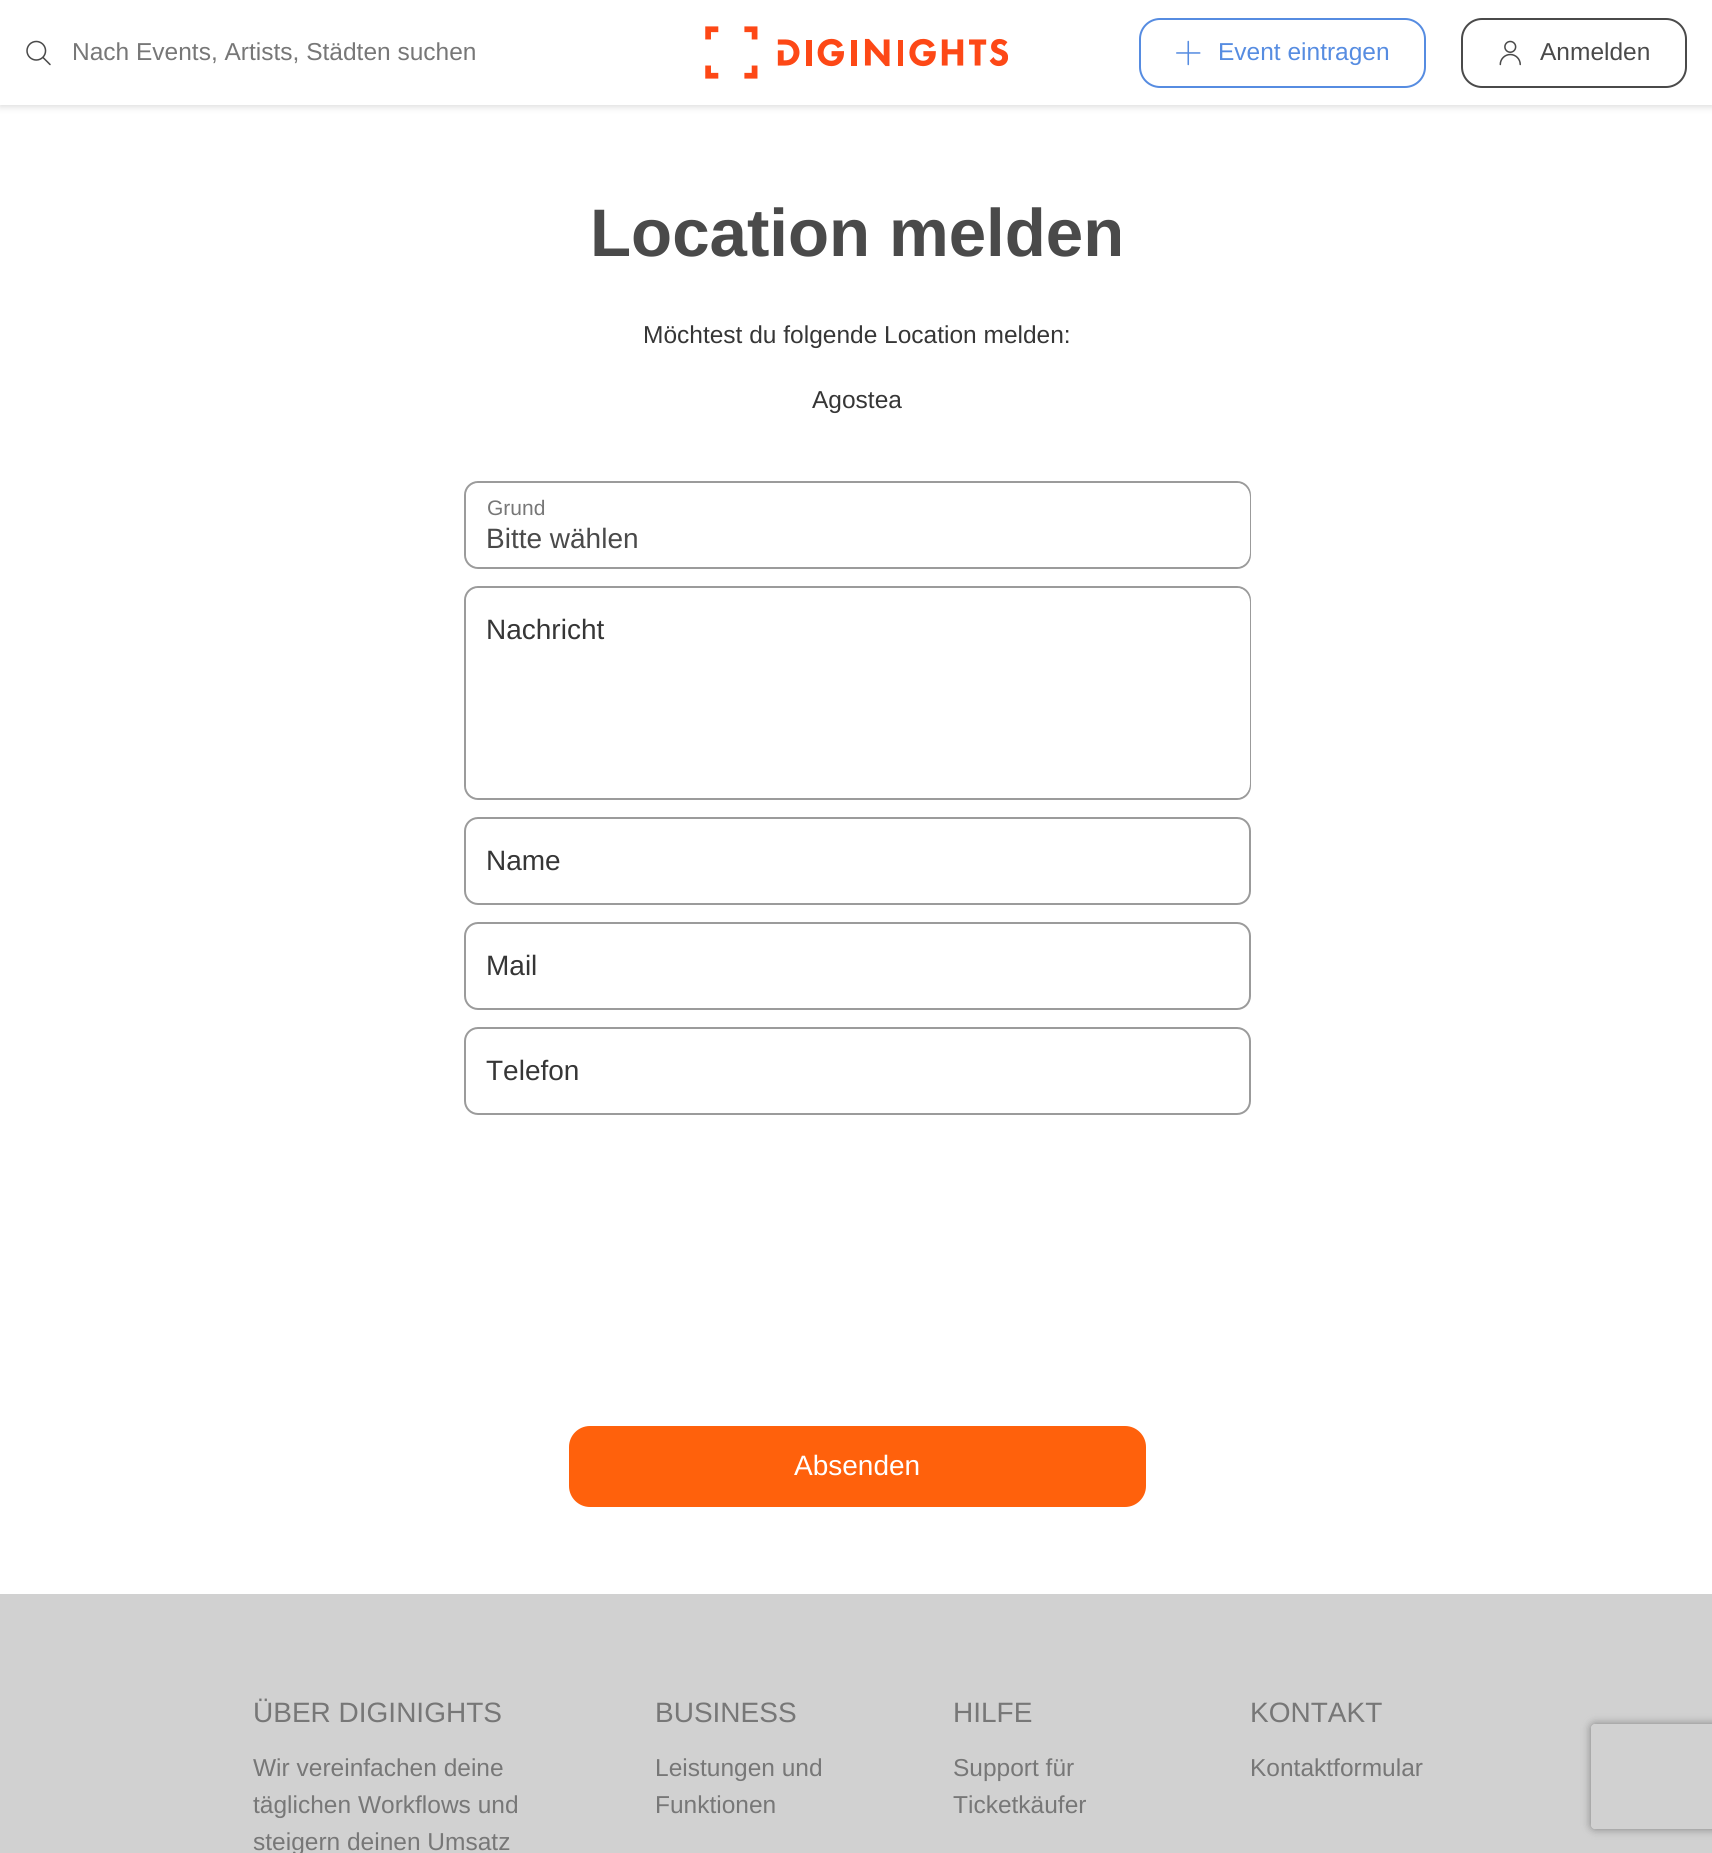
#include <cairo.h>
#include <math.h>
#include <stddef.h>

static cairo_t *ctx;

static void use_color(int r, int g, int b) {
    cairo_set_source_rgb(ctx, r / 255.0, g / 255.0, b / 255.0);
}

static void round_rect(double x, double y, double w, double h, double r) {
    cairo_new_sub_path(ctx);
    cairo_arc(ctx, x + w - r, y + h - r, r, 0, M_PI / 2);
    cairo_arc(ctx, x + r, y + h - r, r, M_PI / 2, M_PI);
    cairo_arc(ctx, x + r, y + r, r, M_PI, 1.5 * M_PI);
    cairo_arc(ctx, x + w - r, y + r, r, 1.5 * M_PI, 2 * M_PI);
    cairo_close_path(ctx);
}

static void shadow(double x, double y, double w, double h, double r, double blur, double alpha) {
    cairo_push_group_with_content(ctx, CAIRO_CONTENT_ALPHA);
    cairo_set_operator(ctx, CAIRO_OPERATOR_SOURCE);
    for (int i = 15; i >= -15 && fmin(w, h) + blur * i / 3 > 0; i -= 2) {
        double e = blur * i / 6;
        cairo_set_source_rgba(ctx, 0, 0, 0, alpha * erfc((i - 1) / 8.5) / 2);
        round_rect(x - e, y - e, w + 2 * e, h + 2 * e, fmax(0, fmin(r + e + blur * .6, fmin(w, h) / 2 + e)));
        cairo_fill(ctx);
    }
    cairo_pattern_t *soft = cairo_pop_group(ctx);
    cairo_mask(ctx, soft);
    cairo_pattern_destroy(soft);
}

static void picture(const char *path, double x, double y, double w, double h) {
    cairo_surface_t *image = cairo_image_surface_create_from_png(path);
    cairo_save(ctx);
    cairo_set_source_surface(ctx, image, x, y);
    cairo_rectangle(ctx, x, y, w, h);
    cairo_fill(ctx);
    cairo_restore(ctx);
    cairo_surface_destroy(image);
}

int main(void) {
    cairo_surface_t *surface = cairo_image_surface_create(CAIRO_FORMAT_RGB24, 1712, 1853);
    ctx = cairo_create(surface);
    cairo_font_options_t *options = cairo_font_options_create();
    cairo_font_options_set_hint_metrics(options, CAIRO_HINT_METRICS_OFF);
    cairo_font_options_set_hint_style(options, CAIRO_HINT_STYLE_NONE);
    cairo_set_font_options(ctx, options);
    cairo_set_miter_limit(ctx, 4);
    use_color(255, 255, 255);
    cairo_paint(ctx);
    cairo_save(ctx);
    cairo_rectangle(ctx, 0, 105, 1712, 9);
    cairo_clip(ctx);
    use_color(221, 221, 221);
    shadow(0, 2, 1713, 105, 0, 3.5, 1);
    cairo_restore(ctx);
    picture("img1.png", 26, 40, 25, 26);
    cairo_select_font_face(ctx, "Liberation Sans", CAIRO_FONT_SLANT_NORMAL, CAIRO_FONT_WEIGHT_NORMAL);
    cairo_set_font_size(ctx, 24.5);
    use_color(119, 119, 119);
    cairo_move_to(ctx, 72, 60);
    cairo_show_text(ctx, "Nach Events, Artists, Städten suchen");
    picture("img2.png", 705, 26, 303, 53);
    round_rect(1140, 19, 285, 68, 20);
    use_color(86, 140, 225);
    cairo_stroke(ctx);
    picture("img3.png", 1176, 40, 25, 26);
    cairo_move_to(ctx, 1218, 60);
    cairo_show_text(ctx, "Event eintragen");
    round_rect(1462, 19, 224, 68, 20);
    use_color(74, 74, 74);
    cairo_stroke(ctx);
    picture("img4.png", 1499, 40, 22, 26);
    cairo_move_to(ctx, 1540, 60);
    cairo_show_text(ctx, "Anmelden");
    cairo_select_font_face(ctx, "Liberation Sans", CAIRO_FONT_SLANT_NORMAL, CAIRO_FONT_WEIGHT_BOLD);
    cairo_set_font_size(ctx, 67.25);
    cairo_move_to(ctx, 590, 256);
    cairo_show_text(ctx, "Location melden");
    cairo_select_font_face(ctx, "Liberation Sans", CAIRO_FONT_SLANT_NORMAL, CAIRO_FONT_WEIGHT_NORMAL);
    cairo_set_font_size(ctx, 24.5);
    use_color(54, 54, 54);
    cairo_move_to(ctx, 643, 343);
    cairo_show_text(ctx, "Möchtest du folgende Location melden:");
    cairo_move_to(ctx, 812, 408);
    cairo_show_text(ctx, "Agostea");
    round_rect(465, 482, 785, 86, 13);
    use_color(155, 155, 155);
    cairo_stroke(ctx);
    use_color(255, 255, 255);
    round_rect(466, 483, 784, 84, 14);
    cairo_fill(ctx);
    cairo_set_font_size(ctx, 21);
    use_color(119, 119, 119);
    cairo_move_to(ctx, 487, 515);
    cairo_show_text(ctx, "Grund");
    cairo_set_font_size(ctx, 28);
    use_color(74, 74, 74);
    cairo_move_to(ctx, 486, 548);
    cairo_show_text(ctx, "Bitte wählen");
    round_rect(465, 587, 785, 212, 13);
    use_color(155, 155, 155);
    cairo_stroke(ctx);
    use_color(255, 255, 255);
    round_rect(466, 588, 784, 210, 14);
    cairo_fill(ctx);
    use_color(54, 54, 54);
    cairo_move_to(ctx, 486, 639);
    cairo_show_text(ctx, "Nachricht");
    round_rect(465, 818, 785, 86, 13);
    use_color(155, 155, 155);
    cairo_stroke(ctx);
    use_color(54, 54, 54);
    cairo_move_to(ctx, 486, 870);
    cairo_show_text(ctx, "Name");
    round_rect(465, 923, 785, 86, 13);
    use_color(155, 155, 155);
    cairo_stroke(ctx);
    use_color(54, 54, 54);
    cairo_move_to(ctx, 486, 975);
    cairo_show_text(ctx, "Mail");
    round_rect(465, 1028, 785, 86, 13);
    use_color(155, 155, 155);
    cairo_stroke(ctx);
    use_color(54, 54, 54);
    cairo_move_to(ctx, 486, 1080);
    cairo_show_text(ctx, "Telefon");
    use_color(255, 97, 12);
    round_rect(570, 1427, 575, 79, 20);
    cairo_fill_preserve(ctx);
    cairo_stroke(ctx);
    use_color(255, 255, 255);
    cairo_move_to(ctx, 794, 1475);
    cairo_show_text(ctx, "Absenden");
    use_color(209, 209, 209);
    cairo_rectangle(ctx, 0, 1594, 1712, 259);
    cairo_fill(ctx);
    use_color(119, 119, 119);
    cairo_move_to(ctx, 253, 1722);
    cairo_show_text(ctx, "ÜBER DIGINIGHTS");
    cairo_set_font_size(ctx, 24.5);
    cairo_move_to(ctx, 253, 1776);
    cairo_show_text(ctx, "Wir vereinfachen deine");
    cairo_move_to(ctx, 253, 1813);
    cairo_show_text(ctx, "täglichen Workflows und");
    cairo_move_to(ctx, 253, 1850);
    cairo_show_text(ctx, "steigern deinen Umsatz");
    cairo_set_font_size(ctx, 28);
    cairo_move_to(ctx, 655, 1722);
    cairo_show_text(ctx, "BUSINESS");
    cairo_set_font_size(ctx, 24.5);
    cairo_move_to(ctx, 655, 1776);
    cairo_show_text(ctx, "Leistungen und");
    cairo_move_to(ctx, 655, 1813);
    cairo_show_text(ctx, "Funktionen");
    cairo_set_font_size(ctx, 28);
    cairo_move_to(ctx, 953, 1722);
    cairo_show_text(ctx, "HILFE");
    cairo_set_font_size(ctx, 24.5);
    cairo_move_to(ctx, 953, 1776);
    cairo_show_text(ctx, "Support für");
    cairo_move_to(ctx, 953, 1813);
    cairo_show_text(ctx, "Ticketkäufer");
    cairo_set_font_size(ctx, 28);
    cairo_move_to(ctx, 1250, 1722);
    cairo_show_text(ctx, "KONTAKT");
    cairo_set_font_size(ctx, 24.5);
    cairo_move_to(ctx, 1250, 1776);
    cairo_show_text(ctx, "Kontaktformular");
    cairo_save(ctx);
    cairo_set_fill_rule(ctx, CAIRO_FILL_RULE_EVEN_ODD);
    cairo_new_path(ctx);
    cairo_move_to(ctx, 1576, 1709);
    cairo_line_to(ctx, 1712, 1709);
    cairo_line_to(ctx, 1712, 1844);
    cairo_line_to(ctx, 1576, 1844);
    cairo_close_path(ctx);
    cairo_move_to(ctx, 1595, 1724);
    cairo_line_to(ctx, 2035, 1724);
    cairo_curve_to(ctx, 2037, 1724, 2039, 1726, 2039, 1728);
    cairo_line_to(ctx, 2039, 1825);
    cairo_curve_to(ctx, 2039, 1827, 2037, 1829, 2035, 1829);
    cairo_line_to(ctx, 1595, 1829);
    cairo_curve_to(ctx, 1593, 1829, 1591, 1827, 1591, 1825);
    cairo_line_to(ctx, 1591, 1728);
    cairo_curve_to(ctx, 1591, 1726, 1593, 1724, 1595, 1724);
    cairo_close_path(ctx);
    cairo_clip(ctx);
    use_color(128, 128, 128);
    shadow(1591, 1724, 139, 105, 4, 4.5, 1);
    cairo_restore(ctx);
    cairo_surface_write_to_png(surface, "result.png");
    cairo_font_options_destroy(options);
    cairo_destroy(ctx);
    cairo_surface_destroy(surface);
    return 0;
}
